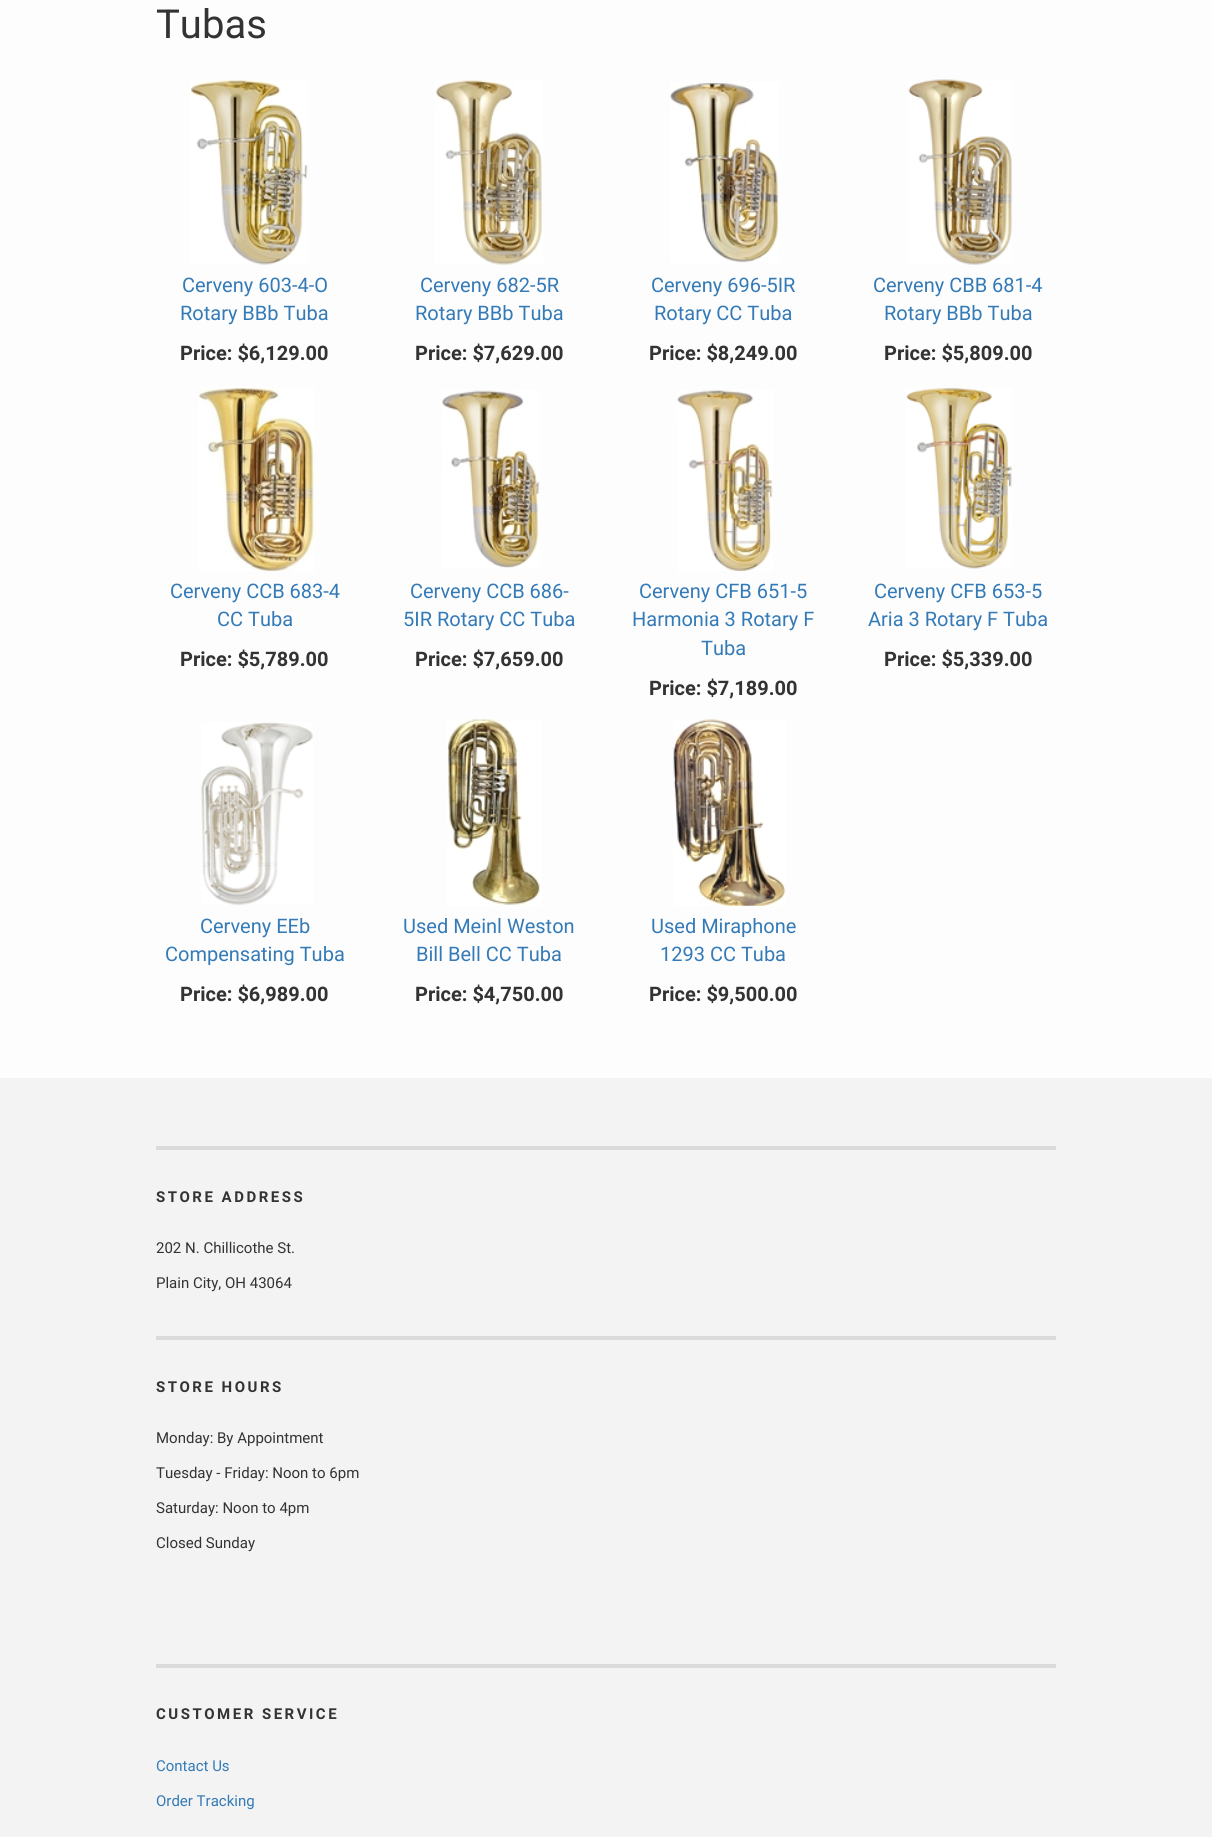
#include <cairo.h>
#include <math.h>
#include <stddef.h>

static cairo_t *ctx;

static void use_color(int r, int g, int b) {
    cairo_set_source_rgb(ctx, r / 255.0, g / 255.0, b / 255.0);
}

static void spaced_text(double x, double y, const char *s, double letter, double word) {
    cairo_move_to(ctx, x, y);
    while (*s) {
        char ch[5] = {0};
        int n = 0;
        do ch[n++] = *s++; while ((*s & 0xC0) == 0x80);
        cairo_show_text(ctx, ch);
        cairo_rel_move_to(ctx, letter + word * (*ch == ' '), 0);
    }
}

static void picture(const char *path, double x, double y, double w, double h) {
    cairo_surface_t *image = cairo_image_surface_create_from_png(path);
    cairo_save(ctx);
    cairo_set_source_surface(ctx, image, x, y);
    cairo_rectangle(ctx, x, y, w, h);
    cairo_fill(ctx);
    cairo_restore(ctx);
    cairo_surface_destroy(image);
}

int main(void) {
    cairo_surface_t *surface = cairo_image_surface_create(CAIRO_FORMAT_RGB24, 1212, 1837);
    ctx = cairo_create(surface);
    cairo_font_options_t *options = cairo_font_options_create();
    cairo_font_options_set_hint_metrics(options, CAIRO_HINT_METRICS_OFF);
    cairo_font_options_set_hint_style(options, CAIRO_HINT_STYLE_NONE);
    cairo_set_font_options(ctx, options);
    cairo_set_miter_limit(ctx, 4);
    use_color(253, 253, 253);
    cairo_paint(ctx);
    cairo_select_font_face(ctx, "Roboto", CAIRO_FONT_SLANT_NORMAL, CAIRO_FONT_WEIGHT_NORMAL);
    cairo_set_font_size(ctx, 40);
    use_color(51, 51, 51);
    cairo_move_to(ctx, 156, 38);
    cairo_show_text(ctx, "Tubas");
    picture("img1.png", 190, 79, 118, 186);
    cairo_set_font_size(ctx, 20);
    use_color(51, 122, 183);
    cairo_move_to(ctx, 182, 292);
    cairo_show_text(ctx, "Cerveny 603-4-O");
    cairo_move_to(ctx, 180, 320);
    cairo_show_text(ctx, "Rotary BBb Tuba");
    cairo_select_font_face(ctx, "Roboto", CAIRO_FONT_SLANT_NORMAL, CAIRO_FONT_WEIGHT_BOLD);
    use_color(51, 51, 51);
    cairo_move_to(ctx, 180, 360);
    cairo_show_text(ctx, "Price: $6,129.00");
    picture("img2.png", 435, 79, 108, 186);
    cairo_select_font_face(ctx, "Roboto", CAIRO_FONT_SLANT_NORMAL, CAIRO_FONT_WEIGHT_NORMAL);
    use_color(51, 122, 183);
    cairo_move_to(ctx, 420, 292);
    cairo_show_text(ctx, "Cerveny 682-5R");
    cairo_move_to(ctx, 415, 320);
    cairo_show_text(ctx, "Rotary BBb Tuba");
    cairo_select_font_face(ctx, "Roboto", CAIRO_FONT_SLANT_NORMAL, CAIRO_FONT_WEIGHT_BOLD);
    use_color(51, 51, 51);
    cairo_move_to(ctx, 415, 360);
    cairo_show_text(ctx, "Price: $7,629.00");
    picture("img3.png", 670, 82, 109, 181);
    cairo_select_font_face(ctx, "Roboto", CAIRO_FONT_SLANT_NORMAL, CAIRO_FONT_WEIGHT_NORMAL);
    use_color(51, 122, 183);
    cairo_move_to(ctx, 651, 292);
    cairo_show_text(ctx, "Cerveny 696-5IR");
    cairo_move_to(ctx, 654, 320);
    cairo_show_text(ctx, "Rotary CC Tuba");
    cairo_select_font_face(ctx, "Roboto", CAIRO_FONT_SLANT_NORMAL, CAIRO_FONT_WEIGHT_BOLD);
    use_color(51, 51, 51);
    cairo_move_to(ctx, 649, 360);
    cairo_show_text(ctx, "Price: $8,249.00");
    picture("img4.png", 908, 79, 104, 186);
    cairo_select_font_face(ctx, "Roboto", CAIRO_FONT_SLANT_NORMAL, CAIRO_FONT_WEIGHT_NORMAL);
    use_color(51, 122, 183);
    cairo_move_to(ctx, 873, 292);
    cairo_show_text(ctx, "Cerveny CBB 681-4");
    cairo_move_to(ctx, 884, 320);
    cairo_show_text(ctx, "Rotary BBb Tuba");
    cairo_select_font_face(ctx, "Roboto", CAIRO_FONT_SLANT_NORMAL, CAIRO_FONT_WEIGHT_BOLD);
    use_color(51, 51, 51);
    cairo_move_to(ctx, 884, 360);
    cairo_show_text(ctx, "Price: $5,809.00");
    picture("img5.png", 198, 387, 117, 184);
    cairo_select_font_face(ctx, "Roboto", CAIRO_FONT_SLANT_NORMAL, CAIRO_FONT_WEIGHT_NORMAL);
    use_color(51, 122, 183);
    cairo_move_to(ctx, 170, 598);
    cairo_show_text(ctx, "Cerveny CCB 683-4");
    cairo_move_to(ctx, 217, 626);
    cairo_show_text(ctx, "CC Tuba");
    cairo_select_font_face(ctx, "Roboto", CAIRO_FONT_SLANT_NORMAL, CAIRO_FONT_WEIGHT_BOLD);
    use_color(51, 51, 51);
    cairo_move_to(ctx, 180, 666);
    cairo_show_text(ctx, "Price: $5,789.00");
    picture("img6.png", 442, 390, 98, 178);
    cairo_select_font_face(ctx, "Roboto", CAIRO_FONT_SLANT_NORMAL, CAIRO_FONT_WEIGHT_NORMAL);
    use_color(51, 122, 183);
    cairo_move_to(ctx, 410, 598);
    cairo_show_text(ctx, "Cerveny CCB 686-");
    cairo_move_to(ctx, 403, 626);
    cairo_show_text(ctx, "5IR Rotary CC Tuba");
    cairo_select_font_face(ctx, "Roboto", CAIRO_FONT_SLANT_NORMAL, CAIRO_FONT_WEIGHT_BOLD);
    use_color(51, 51, 51);
    cairo_move_to(ctx, 415, 666);
    cairo_show_text(ctx, "Price: $7,659.00");
    picture("img7.png", 677, 390, 96, 181);
    cairo_select_font_face(ctx, "Roboto", CAIRO_FONT_SLANT_NORMAL, CAIRO_FONT_WEIGHT_NORMAL);
    use_color(51, 122, 183);
    cairo_move_to(ctx, 639, 598);
    cairo_show_text(ctx, "Cerveny CFB 651-5");
    cairo_move_to(ctx, 632, 626);
    cairo_show_text(ctx, "Harmonia 3 Rotary F");
    cairo_move_to(ctx, 701, 655);
    cairo_show_text(ctx, "Tuba");
    cairo_select_font_face(ctx, "Roboto", CAIRO_FONT_SLANT_NORMAL, CAIRO_FONT_WEIGHT_BOLD);
    use_color(51, 51, 51);
    cairo_move_to(ctx, 649, 695);
    cairo_show_text(ctx, "Price: $7,189.00");
    picture("img8.png", 906, 388, 106, 181);
    cairo_select_font_face(ctx, "Roboto", CAIRO_FONT_SLANT_NORMAL, CAIRO_FONT_WEIGHT_NORMAL);
    use_color(51, 122, 183);
    cairo_move_to(ctx, 874, 598);
    cairo_show_text(ctx, "Cerveny CFB 653-5");
    cairo_move_to(ctx, 868, 626);
    cairo_show_text(ctx, "Aria 3 Rotary F Tuba");
    cairo_select_font_face(ctx, "Roboto", CAIRO_FONT_SLANT_NORMAL, CAIRO_FONT_WEIGHT_BOLD);
    use_color(51, 51, 51);
    cairo_move_to(ctx, 884, 666);
    cairo_show_text(ctx, "Price: $5,339.00");
    picture("img9.png", 201, 722, 112, 183);
    cairo_select_font_face(ctx, "Roboto", CAIRO_FONT_SLANT_NORMAL, CAIRO_FONT_WEIGHT_NORMAL);
    use_color(51, 122, 183);
    cairo_move_to(ctx, 200, 933);
    cairo_show_text(ctx, "Cerveny EEb");
    cairo_move_to(ctx, 165, 961);
    cairo_show_text(ctx, "Compensating Tuba");
    cairo_select_font_face(ctx, "Roboto", CAIRO_FONT_SLANT_NORMAL, CAIRO_FONT_WEIGHT_BOLD);
    use_color(51, 51, 51);
    cairo_move_to(ctx, 180, 1001);
    cairo_show_text(ctx, "Price: $6,989.00");
    picture("img10.png", 447, 719, 94, 187);
    cairo_select_font_face(ctx, "Roboto", CAIRO_FONT_SLANT_NORMAL, CAIRO_FONT_WEIGHT_NORMAL);
    use_color(51, 122, 183);
    cairo_move_to(ctx, 403, 933);
    cairo_show_text(ctx, "Used Meinl Weston");
    cairo_move_to(ctx, 416, 961);
    cairo_show_text(ctx, "Bill Bell CC Tuba");
    cairo_select_font_face(ctx, "Roboto", CAIRO_FONT_SLANT_NORMAL, CAIRO_FONT_WEIGHT_BOLD);
    use_color(51, 51, 51);
    cairo_move_to(ctx, 415, 1001);
    cairo_show_text(ctx, "Price: $4,750.00");
    picture("img11.png", 673, 719, 113, 187);
    cairo_select_font_face(ctx, "Roboto", CAIRO_FONT_SLANT_NORMAL, CAIRO_FONT_WEIGHT_NORMAL);
    use_color(51, 122, 183);
    cairo_move_to(ctx, 651, 933);
    cairo_show_text(ctx, "Used Miraphone");
    cairo_move_to(ctx, 660, 961);
    cairo_show_text(ctx, "1293 CC Tuba");
    cairo_select_font_face(ctx, "Roboto", CAIRO_FONT_SLANT_NORMAL, CAIRO_FONT_WEIGHT_BOLD);
    use_color(51, 51, 51);
    cairo_move_to(ctx, 649, 1001);
    cairo_show_text(ctx, "Price: $9,500.00");
    use_color(243, 243, 243);
    cairo_rectangle(ctx, 0, 1078, 1212, 759);
    cairo_fill(ctx);
    use_color(219, 219, 219);
    cairo_rectangle(ctx, 156, 1146, 900, 4);
    cairo_fill(ctx);
    cairo_set_font_size(ctx, 15);
    use_color(51, 51, 51);
    spaced_text(156, 1202, "STORE ADDRESS", 2.5, 0);
    cairo_select_font_face(ctx, "Roboto", CAIRO_FONT_SLANT_NORMAL, CAIRO_FONT_WEIGHT_NORMAL);
    cairo_move_to(ctx, 156, 1253);
    cairo_show_text(ctx, "202 N. Chillicothe St.");
    cairo_move_to(ctx, 156, 1288);
    cairo_show_text(ctx, "Plain City, OH 43064");
    use_color(219, 219, 219);
    cairo_rectangle(ctx, 156, 1336, 900, 4);
    cairo_fill(ctx);
    cairo_select_font_face(ctx, "Roboto", CAIRO_FONT_SLANT_NORMAL, CAIRO_FONT_WEIGHT_BOLD);
    use_color(51, 51, 51);
    spaced_text(156, 1392, "STORE HOURS", 2.5, 0);
    cairo_select_font_face(ctx, "Roboto", CAIRO_FONT_SLANT_NORMAL, CAIRO_FONT_WEIGHT_NORMAL);
    cairo_move_to(ctx, 156, 1443);
    cairo_show_text(ctx, "Monday: By Appointment");
    cairo_move_to(ctx, 156, 1478);
    cairo_show_text(ctx, "Tuesday - Friday: Noon to 6pm");
    cairo_move_to(ctx, 156, 1513);
    cairo_show_text(ctx, "Saturday: Noon to 4pm");
    cairo_move_to(ctx, 156, 1548);
    cairo_show_text(ctx, "Closed Sunday");
    use_color(219, 219, 219);
    cairo_rectangle(ctx, 156, 1664, 900, 4);
    cairo_fill(ctx);
    cairo_select_font_face(ctx, "Roboto", CAIRO_FONT_SLANT_NORMAL, CAIRO_FONT_WEIGHT_BOLD);
    use_color(51, 51, 51);
    spaced_text(156, 1719, "CUSTOMER SERVICE", 2.5, 0);
    cairo_select_font_face(ctx, "Roboto", CAIRO_FONT_SLANT_NORMAL, CAIRO_FONT_WEIGHT_NORMAL);
    use_color(51, 122, 183);
    cairo_move_to(ctx, 156, 1771);
    cairo_show_text(ctx, "Contact Us");
    cairo_move_to(ctx, 156, 1806);
    cairo_show_text(ctx, "Order Tracking");
    cairo_surface_write_to_png(surface, "result.png");
    cairo_font_options_destroy(options);
    cairo_destroy(ctx);
    cairo_surface_destroy(surface);
    return 0;
}
